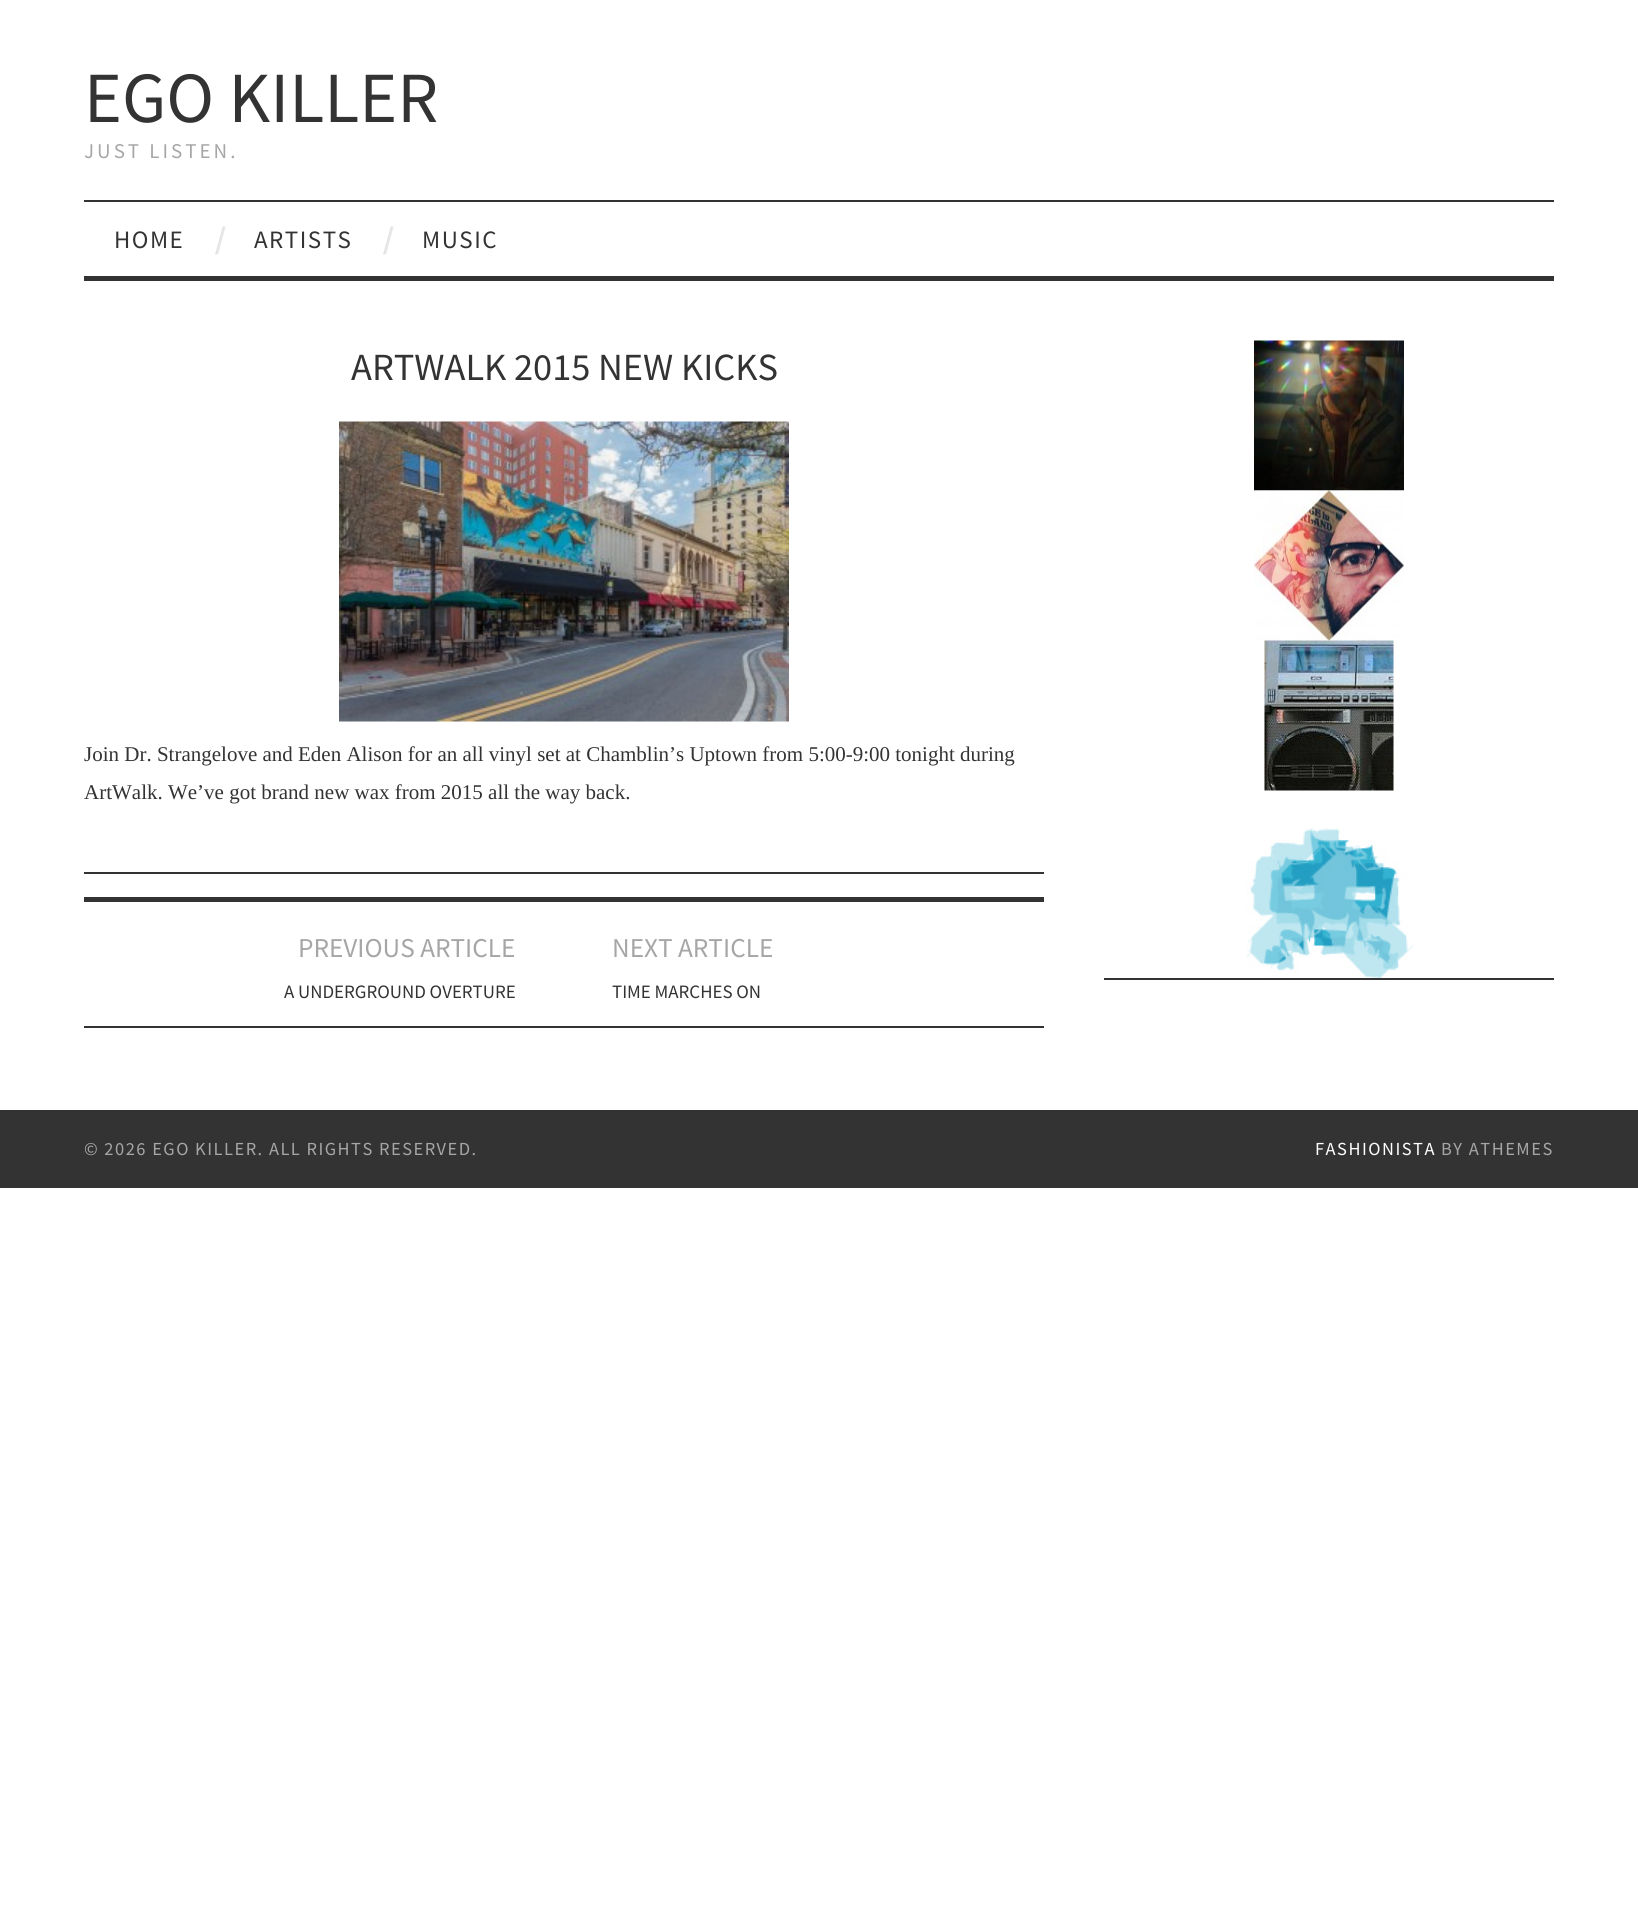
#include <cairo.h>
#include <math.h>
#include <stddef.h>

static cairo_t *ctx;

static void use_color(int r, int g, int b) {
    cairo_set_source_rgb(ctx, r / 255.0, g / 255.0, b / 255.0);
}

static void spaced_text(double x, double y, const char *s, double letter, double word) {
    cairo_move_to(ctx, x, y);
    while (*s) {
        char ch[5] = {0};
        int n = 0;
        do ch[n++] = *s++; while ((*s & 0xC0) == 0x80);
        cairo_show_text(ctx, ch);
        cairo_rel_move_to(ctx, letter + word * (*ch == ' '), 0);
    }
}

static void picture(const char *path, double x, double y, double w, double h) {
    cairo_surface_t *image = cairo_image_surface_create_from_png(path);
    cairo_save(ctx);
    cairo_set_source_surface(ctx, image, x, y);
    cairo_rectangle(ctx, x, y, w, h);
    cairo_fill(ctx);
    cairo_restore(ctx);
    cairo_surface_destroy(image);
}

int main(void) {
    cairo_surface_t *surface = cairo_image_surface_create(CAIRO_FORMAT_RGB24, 1638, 1907);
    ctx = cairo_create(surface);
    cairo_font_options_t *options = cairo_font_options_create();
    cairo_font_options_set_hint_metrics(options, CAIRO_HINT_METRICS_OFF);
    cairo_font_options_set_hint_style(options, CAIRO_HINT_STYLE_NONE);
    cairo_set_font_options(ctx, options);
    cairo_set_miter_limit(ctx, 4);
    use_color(255, 255, 255);
    cairo_paint(ctx);
    cairo_select_font_face(ctx, "Source Sans Pro", CAIRO_FONT_SLANT_NORMAL, CAIRO_FONT_WEIGHT_NORMAL);
    cairo_set_font_size(ctx, 72);
    use_color(51, 51, 51);
    cairo_move_to(ctx, 84, 122);
    cairo_show_text(ctx, "EGO KILLER");
    cairo_set_font_size(ctx, 21);
    use_color(166, 166, 166);
    spaced_text(84, 158, "JUST LISTEN.", 3, 0);
    use_color(51, 51, 51);
    cairo_rectangle(ctx, 84, 200, 1470, 2);
    cairo_fill(ctx);
    cairo_rectangle(ctx, 84, 276, 1470, 5);
    cairo_fill(ctx);
    cairo_set_font_size(ctx, 25);
    spaced_text(114, 248, "HOME", 1.5, 0);
    cairo_select_font_face(ctx, "Liberation Sans", CAIRO_FONT_SLANT_NORMAL, CAIRO_FONT_WEIGHT_NORMAL);
    cairo_set_font_size(ctx, 38);
    use_color(230, 230, 230);
    cairo_move_to(ctx, 215, 254);
    cairo_show_text(ctx, "/");
    cairo_select_font_face(ctx, "Source Sans Pro", CAIRO_FONT_SLANT_NORMAL, CAIRO_FONT_WEIGHT_NORMAL);
    cairo_set_font_size(ctx, 25);
    use_color(51, 51, 51);
    spaced_text(254, 248, "ARTISTS", 1.5, 0);
    cairo_select_font_face(ctx, "Liberation Sans", CAIRO_FONT_SLANT_NORMAL, CAIRO_FONT_WEIGHT_NORMAL);
    cairo_set_font_size(ctx, 38);
    use_color(230, 230, 230);
    cairo_move_to(ctx, 383, 254);
    cairo_show_text(ctx, "/");
    cairo_select_font_face(ctx, "Source Sans Pro", CAIRO_FONT_SLANT_NORMAL, CAIRO_FONT_WEIGHT_NORMAL);
    cairo_set_font_size(ctx, 25);
    use_color(51, 51, 51);
    spaced_text(422, 248, "MUSIC", 1.5, 0);
    cairo_set_font_size(ctx, 38.4);
    cairo_move_to(ctx, 351, 380);
    cairo_show_text(ctx, "ARTWALK 2015 NEW KICKS");
    picture("img1.png", 339, 421, 450, 301);
    cairo_select_font_face(ctx, "Liberation Serif", CAIRO_FONT_SLANT_NORMAL, CAIRO_FONT_WEIGHT_NORMAL);
    cairo_set_font_size(ctx, 21);
    cairo_move_to(ctx, 84, 761);
    cairo_show_text(ctx, "Join Dr. Strangelove and Eden Alison for an all vinyl set at Chamblin’s Uptown from 5:00-9:00 tonight during");
    cairo_move_to(ctx, 84, 799);
    cairo_show_text(ctx, "ArtWalk. We’ve got brand new wax from 2015 all the way back.");
    cairo_rectangle(ctx, 84, 872, 960, 2);
    cairo_fill(ctx);
    cairo_rectangle(ctx, 84, 897, 960, 5);
    cairo_fill(ctx);
    cairo_rectangle(ctx, 84, 1026, 960, 2);
    cairo_fill(ctx);
    cairo_select_font_face(ctx, "Source Sans Pro", CAIRO_FONT_SLANT_NORMAL, CAIRO_FONT_WEIGHT_NORMAL);
    cairo_set_font_size(ctx, 27.25);
    use_color(166, 166, 166);
    cairo_move_to(ctx, 298, 957);
    cairo_show_text(ctx, "PREVIOUS ARTICLE");
    cairo_set_font_size(ctx, 18.9);
    use_color(51, 51, 51);
    cairo_move_to(ctx, 284, 998);
    cairo_show_text(ctx, "A UNDERGROUND OVERTURE");
    cairo_set_font_size(ctx, 27.25);
    use_color(166, 166, 166);
    cairo_move_to(ctx, 612, 957);
    cairo_show_text(ctx, "NEXT ARTICLE");
    cairo_set_font_size(ctx, 18.9);
    use_color(51, 51, 51);
    cairo_move_to(ctx, 612, 998);
    cairo_show_text(ctx, "TIME MARCHES ON");
    cairo_rectangle(ctx, 1104, 978, 450, 2);
    cairo_fill(ctx);
    picture("img2.png", 1254, 340, 150, 151);
    picture("img3.png", 1254, 490, 150, 151);
    picture("img4.png", 1264, 640, 130, 151);
    picture("img5.png", 1246, 828, 167, 150);
    cairo_rectangle(ctx, 0, 1110, 1638, 78);
    cairo_fill(ctx);
    cairo_set_font_size(ctx, 18.4);
    use_color(166, 166, 166);
    spaced_text(84, 1155, "© 2026 EGO KILLER. ALL RIGHTS RESERVED.", 1.5, 0);
    use_color(255, 255, 255);
    spaced_text(1315, 1155, "FASHIONISTA", 1.5, 0);
    use_color(166, 166, 166);
    spaced_text(1441, 1155, "BY ATHEMES", 1.5, 0);
    cairo_surface_write_to_png(surface, "result.png");
    cairo_font_options_destroy(options);
    cairo_destroy(ctx);
    cairo_surface_destroy(surface);
    return 0;
}
